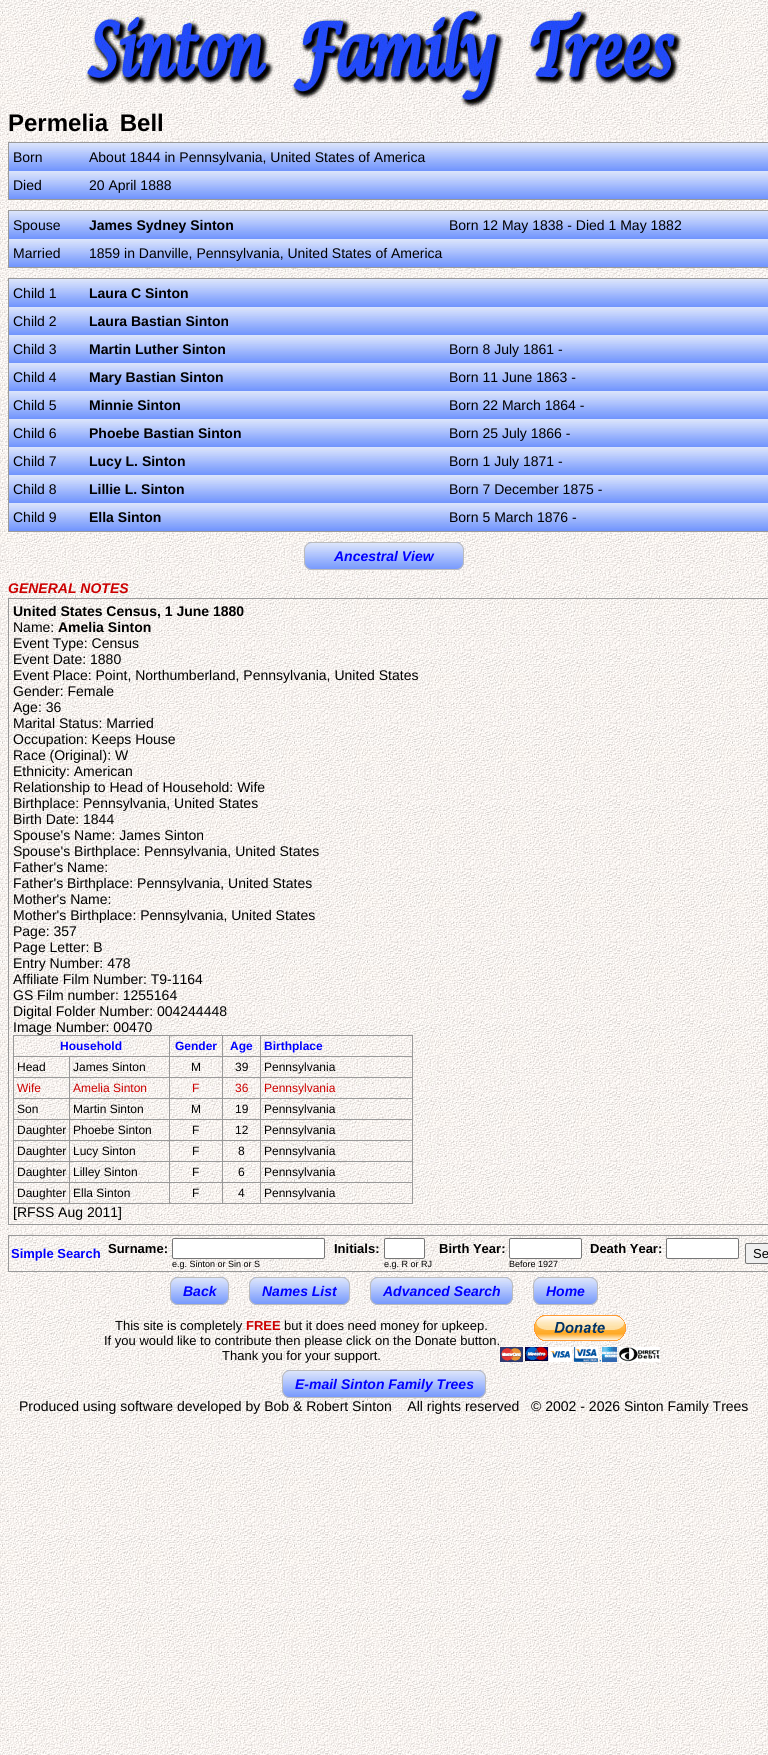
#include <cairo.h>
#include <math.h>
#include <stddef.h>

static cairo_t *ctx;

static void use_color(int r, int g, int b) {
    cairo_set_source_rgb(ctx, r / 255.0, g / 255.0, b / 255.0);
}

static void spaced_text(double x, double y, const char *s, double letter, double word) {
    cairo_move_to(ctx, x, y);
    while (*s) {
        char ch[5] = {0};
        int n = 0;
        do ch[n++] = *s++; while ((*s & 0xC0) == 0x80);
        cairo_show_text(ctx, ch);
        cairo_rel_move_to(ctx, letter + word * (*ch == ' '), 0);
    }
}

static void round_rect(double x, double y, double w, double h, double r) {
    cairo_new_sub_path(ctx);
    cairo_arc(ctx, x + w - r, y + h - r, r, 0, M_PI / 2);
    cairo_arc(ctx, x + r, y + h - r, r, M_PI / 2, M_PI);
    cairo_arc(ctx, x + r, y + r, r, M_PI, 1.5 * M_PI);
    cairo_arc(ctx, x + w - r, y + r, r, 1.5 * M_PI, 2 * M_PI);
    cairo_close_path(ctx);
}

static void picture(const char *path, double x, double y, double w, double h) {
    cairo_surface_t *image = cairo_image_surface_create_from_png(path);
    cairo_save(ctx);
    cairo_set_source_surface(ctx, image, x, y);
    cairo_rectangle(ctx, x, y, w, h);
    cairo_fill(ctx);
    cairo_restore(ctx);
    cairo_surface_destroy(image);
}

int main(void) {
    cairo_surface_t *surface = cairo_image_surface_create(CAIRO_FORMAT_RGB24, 768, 1755);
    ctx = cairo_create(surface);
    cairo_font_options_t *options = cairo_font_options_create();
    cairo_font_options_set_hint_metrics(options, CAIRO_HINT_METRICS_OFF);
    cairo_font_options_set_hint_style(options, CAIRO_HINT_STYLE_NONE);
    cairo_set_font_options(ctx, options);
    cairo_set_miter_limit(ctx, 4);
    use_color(255, 255, 255);
    cairo_paint(ctx);
    picture("img1.png", 0, 0, 768, 1755);
    picture("img2.png", 84, 8, 600, 101);
    cairo_select_font_face(ctx, "Liberation Sans", CAIRO_FONT_SLANT_NORMAL, CAIRO_FONT_WEIGHT_BOLD);
    cairo_set_font_size(ctx, 24);
    use_color(0, 0, 0);
    spaced_text(8, 131, "Permelia Bell", 0, 5);
    cairo_rectangle(ctx, 8.5, 142.5, 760, 57);
    use_color(153, 153, 153);
    cairo_set_line_width(ctx, 1);
    cairo_stroke(ctx);
    picture("img3.png", 9, 143, 80, 28);
    cairo_select_font_face(ctx, "Liberation Sans", CAIRO_FONT_SLANT_NORMAL, CAIRO_FONT_WEIGHT_NORMAL);
    cairo_set_font_size(ctx, 14);
    use_color(0, 0, 0);
    cairo_move_to(ctx, 13, 162);
    cairo_show_text(ctx, "Born");
    picture("img4.png", 89, 143, 679, 28);
    cairo_move_to(ctx, 89, 162);
    cairo_show_text(ctx, "About 1844 in Pennsylvania, United States of America");
    picture("img3.png", 9, 171, 80, 28);
    cairo_move_to(ctx, 13, 190);
    cairo_show_text(ctx, "Died");
    picture("img4.png", 89, 171, 679, 28);
    cairo_move_to(ctx, 89, 190);
    cairo_show_text(ctx, "20 April 1888");
    cairo_rectangle(ctx, 8.5, 210.5, 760, 57);
    use_color(153, 153, 153);
    cairo_stroke(ctx);
    picture("img3.png", 9, 211, 80, 28);
    use_color(0, 0, 0);
    cairo_move_to(ctx, 13, 230);
    cairo_show_text(ctx, "Spouse");
    picture("img5.png", 89, 211, 360, 28);
    cairo_select_font_face(ctx, "Liberation Sans", CAIRO_FONT_SLANT_NORMAL, CAIRO_FONT_WEIGHT_BOLD);
    cairo_move_to(ctx, 89, 230);
    cairo_show_text(ctx, "James Sydney Sinton");
    picture("img6.png", 449, 211, 319, 28);
    cairo_select_font_face(ctx, "Liberation Sans", CAIRO_FONT_SLANT_NORMAL, CAIRO_FONT_WEIGHT_NORMAL);
    cairo_move_to(ctx, 449, 230);
    cairo_show_text(ctx, "Born 12 May 1838 - Died 1 May 1882");
    picture("img3.png", 9, 239, 80, 28);
    cairo_move_to(ctx, 13, 258);
    cairo_show_text(ctx, "Married");
    picture("img4.png", 89, 239, 679, 28);
    cairo_move_to(ctx, 89, 258);
    cairo_show_text(ctx, "1859 in Danville, Pennsylvania, United States of America");
    cairo_rectangle(ctx, 8.5, 278.5, 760, 253);
    use_color(153, 153, 153);
    cairo_stroke(ctx);
    picture("img3.png", 9, 279, 80, 28);
    use_color(0, 0, 0);
    cairo_move_to(ctx, 13, 298);
    cairo_show_text(ctx, "Child 1");
    picture("img5.png", 89, 279, 360, 28);
    cairo_select_font_face(ctx, "Liberation Sans", CAIRO_FONT_SLANT_NORMAL, CAIRO_FONT_WEIGHT_BOLD);
    cairo_move_to(ctx, 89, 298);
    cairo_show_text(ctx, "Laura C Sinton");
    picture("img6.png", 449, 279, 319, 28);
    picture("img3.png", 9, 307, 80, 28);
    cairo_select_font_face(ctx, "Liberation Sans", CAIRO_FONT_SLANT_NORMAL, CAIRO_FONT_WEIGHT_NORMAL);
    cairo_move_to(ctx, 13, 326);
    cairo_show_text(ctx, "Child 2");
    picture("img5.png", 89, 307, 360, 28);
    cairo_select_font_face(ctx, "Liberation Sans", CAIRO_FONT_SLANT_NORMAL, CAIRO_FONT_WEIGHT_BOLD);
    cairo_move_to(ctx, 89, 326);
    cairo_show_text(ctx, "Laura Bastian Sinton");
    picture("img6.png", 449, 307, 319, 28);
    picture("img3.png", 9, 335, 80, 28);
    cairo_select_font_face(ctx, "Liberation Sans", CAIRO_FONT_SLANT_NORMAL, CAIRO_FONT_WEIGHT_NORMAL);
    cairo_move_to(ctx, 13, 354);
    cairo_show_text(ctx, "Child 3");
    picture("img5.png", 89, 335, 360, 28);
    cairo_select_font_face(ctx, "Liberation Sans", CAIRO_FONT_SLANT_NORMAL, CAIRO_FONT_WEIGHT_BOLD);
    cairo_move_to(ctx, 89, 354);
    cairo_show_text(ctx, "Martin Luther Sinton");
    picture("img6.png", 449, 335, 319, 28);
    cairo_select_font_face(ctx, "Liberation Sans", CAIRO_FONT_SLANT_NORMAL, CAIRO_FONT_WEIGHT_NORMAL);
    cairo_move_to(ctx, 449, 354);
    cairo_show_text(ctx, "Born 8 July 1861 -");
    picture("img3.png", 9, 363, 80, 28);
    cairo_move_to(ctx, 13, 382);
    cairo_show_text(ctx, "Child 4");
    picture("img5.png", 89, 363, 360, 28);
    cairo_select_font_face(ctx, "Liberation Sans", CAIRO_FONT_SLANT_NORMAL, CAIRO_FONT_WEIGHT_BOLD);
    cairo_move_to(ctx, 89, 382);
    cairo_show_text(ctx, "Mary Bastian Sinton");
    picture("img6.png", 449, 363, 319, 28);
    cairo_select_font_face(ctx, "Liberation Sans", CAIRO_FONT_SLANT_NORMAL, CAIRO_FONT_WEIGHT_NORMAL);
    cairo_move_to(ctx, 449, 382);
    cairo_show_text(ctx, "Born 11 June 1863 -");
    picture("img3.png", 9, 391, 80, 28);
    cairo_move_to(ctx, 13, 410);
    cairo_show_text(ctx, "Child 5");
    picture("img5.png", 89, 391, 360, 28);
    cairo_select_font_face(ctx, "Liberation Sans", CAIRO_FONT_SLANT_NORMAL, CAIRO_FONT_WEIGHT_BOLD);
    cairo_move_to(ctx, 89, 410);
    cairo_show_text(ctx, "Minnie Sinton");
    picture("img6.png", 449, 391, 319, 28);
    cairo_select_font_face(ctx, "Liberation Sans", CAIRO_FONT_SLANT_NORMAL, CAIRO_FONT_WEIGHT_NORMAL);
    cairo_move_to(ctx, 449, 410);
    cairo_show_text(ctx, "Born 22 March 1864 -");
    picture("img3.png", 9, 419, 80, 28);
    cairo_move_to(ctx, 13, 438);
    cairo_show_text(ctx, "Child 6");
    picture("img5.png", 89, 419, 360, 28);
    cairo_select_font_face(ctx, "Liberation Sans", CAIRO_FONT_SLANT_NORMAL, CAIRO_FONT_WEIGHT_BOLD);
    cairo_move_to(ctx, 89, 438);
    cairo_show_text(ctx, "Phoebe Bastian Sinton");
    picture("img6.png", 449, 419, 319, 28);
    cairo_select_font_face(ctx, "Liberation Sans", CAIRO_FONT_SLANT_NORMAL, CAIRO_FONT_WEIGHT_NORMAL);
    cairo_move_to(ctx, 449, 438);
    cairo_show_text(ctx, "Born 25 July 1866 -");
    picture("img3.png", 9, 447, 80, 28);
    cairo_move_to(ctx, 13, 466);
    cairo_show_text(ctx, "Child 7");
    picture("img5.png", 89, 447, 360, 28);
    cairo_select_font_face(ctx, "Liberation Sans", CAIRO_FONT_SLANT_NORMAL, CAIRO_FONT_WEIGHT_BOLD);
    cairo_move_to(ctx, 89, 466);
    cairo_show_text(ctx, "Lucy L. Sinton");
    picture("img6.png", 449, 447, 319, 28);
    cairo_select_font_face(ctx, "Liberation Sans", CAIRO_FONT_SLANT_NORMAL, CAIRO_FONT_WEIGHT_NORMAL);
    cairo_move_to(ctx, 449, 466);
    cairo_show_text(ctx, "Born 1 July 1871 -");
    picture("img3.png", 9, 475, 80, 28);
    cairo_move_to(ctx, 13, 494);
    cairo_show_text(ctx, "Child 8");
    picture("img5.png", 89, 475, 360, 28);
    cairo_select_font_face(ctx, "Liberation Sans", CAIRO_FONT_SLANT_NORMAL, CAIRO_FONT_WEIGHT_BOLD);
    cairo_move_to(ctx, 89, 494);
    cairo_show_text(ctx, "Lillie L. Sinton");
    picture("img6.png", 449, 475, 319, 28);
    cairo_select_font_face(ctx, "Liberation Sans", CAIRO_FONT_SLANT_NORMAL, CAIRO_FONT_WEIGHT_NORMAL);
    cairo_move_to(ctx, 449, 494);
    cairo_show_text(ctx, "Born 7 December 1875 -");
    picture("img3.png", 9, 503, 80, 28);
    cairo_move_to(ctx, 13, 522);
    cairo_show_text(ctx, "Child 9");
    picture("img5.png", 89, 503, 360, 28);
    cairo_select_font_face(ctx, "Liberation Sans", CAIRO_FONT_SLANT_NORMAL, CAIRO_FONT_WEIGHT_BOLD);
    cairo_move_to(ctx, 89, 522);
    cairo_show_text(ctx, "Ella Sinton");
    picture("img6.png", 449, 503, 319, 28);
    cairo_select_font_face(ctx, "Liberation Sans", CAIRO_FONT_SLANT_NORMAL, CAIRO_FONT_WEIGHT_NORMAL);
    cairo_move_to(ctx, 449, 522);
    cairo_show_text(ctx, "Born 5 March 1876 -");
    picture("img7.png", 304, 542, 160, 28);
    round_rect(304.5, 542.5, 159, 27, 7.5);
    use_color(187, 187, 187);
    cairo_stroke(ctx);
    cairo_select_font_face(ctx, "Liberation Sans", CAIRO_FONT_SLANT_ITALIC, CAIRO_FONT_WEIGHT_BOLD);
    use_color(0, 0, 255);
    cairo_move_to(ctx, 334, 561);
    cairo_show_text(ctx, "Ancestral View");
    use_color(204, 0, 0);
    cairo_move_to(ctx, 8, 593);
    cairo_show_text(ctx, "GENERAL NOTES");
    cairo_rectangle(ctx, 8.5, 598.5, 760, 626);
    use_color(153, 153, 153);
    cairo_stroke(ctx);
    cairo_select_font_face(ctx, "Liberation Sans", CAIRO_FONT_SLANT_NORMAL, CAIRO_FONT_WEIGHT_BOLD);
    use_color(0, 0, 0);
    cairo_move_to(ctx, 13, 616);
    cairo_show_text(ctx, "United States Census, 1 June 1880");
    cairo_select_font_face(ctx, "Liberation Sans", CAIRO_FONT_SLANT_NORMAL, CAIRO_FONT_WEIGHT_NORMAL);
    cairo_move_to(ctx, 13, 632);
    cairo_show_text(ctx, "Name:");
    cairo_select_font_face(ctx, "Liberation Sans", CAIRO_FONT_SLANT_NORMAL, CAIRO_FONT_WEIGHT_BOLD);
    cairo_move_to(ctx, 58, 632);
    cairo_show_text(ctx, "Amelia Sinton");
    cairo_select_font_face(ctx, "Liberation Sans", CAIRO_FONT_SLANT_NORMAL, CAIRO_FONT_WEIGHT_NORMAL);
    cairo_move_to(ctx, 13, 648);
    cairo_show_text(ctx, "Event Type: Census");
    cairo_move_to(ctx, 13, 664);
    cairo_show_text(ctx, "Event Date: 1880");
    cairo_move_to(ctx, 13, 680);
    cairo_show_text(ctx, "Event Place: Point, Northumberland, Pennsylvania, United States");
    cairo_move_to(ctx, 13, 696);
    cairo_show_text(ctx, "Gender: Female");
    cairo_move_to(ctx, 13, 712);
    cairo_show_text(ctx, "Age: 36");
    cairo_move_to(ctx, 13, 728);
    cairo_show_text(ctx, "Marital Status: Married");
    cairo_move_to(ctx, 13, 744);
    cairo_show_text(ctx, "Occupation: Keeps House");
    cairo_move_to(ctx, 13, 760);
    cairo_show_text(ctx, "Race (Original): W");
    cairo_move_to(ctx, 13, 776);
    cairo_show_text(ctx, "Ethnicity: American");
    cairo_move_to(ctx, 13, 792);
    cairo_show_text(ctx, "Relationship to Head of Household: Wife");
    cairo_move_to(ctx, 13, 808);
    cairo_show_text(ctx, "Birthplace: Pennsylvania, United States");
    cairo_move_to(ctx, 13, 824);
    cairo_show_text(ctx, "Birth Date: 1844");
    cairo_move_to(ctx, 13, 840);
    cairo_show_text(ctx, "Spouse's Name: James Sinton");
    cairo_move_to(ctx, 13, 856);
    cairo_show_text(ctx, "Spouse's Birthplace: Pennsylvania, United States");
    cairo_move_to(ctx, 13, 872);
    cairo_show_text(ctx, "Father's Name:");
    cairo_move_to(ctx, 13, 888);
    cairo_show_text(ctx, "Father's Birthplace: Pennsylvania, United States");
    cairo_move_to(ctx, 13, 904);
    cairo_show_text(ctx, "Mother's Name:");
    cairo_move_to(ctx, 13, 920);
    cairo_show_text(ctx, "Mother's Birthplace: Pennsylvania, United States");
    cairo_move_to(ctx, 13, 936);
    cairo_show_text(ctx, "Page: 357");
    cairo_move_to(ctx, 13, 952);
    cairo_show_text(ctx, "Page Letter: B");
    cairo_move_to(ctx, 13, 968);
    cairo_show_text(ctx, "Entry Number: 478");
    cairo_move_to(ctx, 13, 984);
    cairo_show_text(ctx, "Affiliate Film Number: T9-1164");
    cairo_move_to(ctx, 13, 1000);
    cairo_show_text(ctx, "GS Film number: 1255164");
    cairo_move_to(ctx, 13, 1016);
    cairo_show_text(ctx, "Digital Folder Number: 004244448");
    cairo_move_to(ctx, 13, 1032);
    cairo_show_text(ctx, "Image Number: 00470");
    use_color(153, 153, 153);
    cairo_rectangle(ctx, 260, 1035, 153, 1);
    cairo_fill(ctx);
    cairo_rectangle(ctx, 260, 1056, 153, 1);
    cairo_fill(ctx);
    cairo_rectangle(ctx, 260, 1077, 153, 1);
    cairo_fill(ctx);
    cairo_rectangle(ctx, 260, 1098, 153, 1);
    cairo_fill(ctx);
    cairo_rectangle(ctx, 260, 1119, 153, 1);
    cairo_fill(ctx);
    cairo_rectangle(ctx, 260, 1140, 153, 1);
    cairo_fill(ctx);
    cairo_rectangle(ctx, 260, 1161, 153, 1);
    cairo_fill(ctx);
    cairo_rectangle(ctx, 260, 1182, 153, 1);
    cairo_fill(ctx);
    cairo_rectangle(ctx, 412, 1182, 1, 22);
    cairo_fill(ctx);
    cairo_rectangle(ctx, 260, 1203, 153, 1);
    cairo_fill(ctx);
    cairo_rectangle(ctx, 260, 1182, 1, 22);
    cairo_fill(ctx);
    cairo_rectangle(ctx, 222, 1182, 39, 1);
    cairo_fill(ctx);
    cairo_rectangle(ctx, 260, 1161, 1, 22);
    cairo_fill(ctx);
    cairo_rectangle(ctx, 222, 1161, 39, 1);
    cairo_fill(ctx);
    cairo_rectangle(ctx, 260, 1140, 1, 22);
    cairo_fill(ctx);
    cairo_rectangle(ctx, 222, 1140, 39, 1);
    cairo_fill(ctx);
    cairo_rectangle(ctx, 260, 1119, 1, 22);
    cairo_fill(ctx);
    cairo_rectangle(ctx, 222, 1119, 39, 1);
    cairo_fill(ctx);
    cairo_rectangle(ctx, 260, 1098, 1, 22);
    cairo_fill(ctx);
    cairo_rectangle(ctx, 222, 1098, 39, 1);
    cairo_fill(ctx);
    cairo_rectangle(ctx, 260, 1077, 1, 22);
    cairo_fill(ctx);
    cairo_rectangle(ctx, 222, 1077, 39, 1);
    cairo_fill(ctx);
    cairo_rectangle(ctx, 260, 1056, 1, 22);
    cairo_fill(ctx);
    cairo_rectangle(ctx, 222, 1056, 39, 1);
    cairo_fill(ctx);
    cairo_rectangle(ctx, 260, 1035, 1, 22);
    cairo_fill(ctx);
    cairo_rectangle(ctx, 222, 1035, 39, 1);
    cairo_fill(ctx);
    cairo_rectangle(ctx, 222, 1203, 39, 1);
    cairo_fill(ctx);
    cairo_rectangle(ctx, 222, 1182, 1, 22);
    cairo_fill(ctx);
    cairo_rectangle(ctx, 169, 1182, 54, 1);
    cairo_fill(ctx);
    cairo_rectangle(ctx, 222, 1161, 1, 22);
    cairo_fill(ctx);
    cairo_rectangle(ctx, 169, 1161, 54, 1);
    cairo_fill(ctx);
    cairo_rectangle(ctx, 222, 1140, 1, 22);
    cairo_fill(ctx);
    cairo_rectangle(ctx, 169, 1140, 54, 1);
    cairo_fill(ctx);
    cairo_rectangle(ctx, 222, 1119, 1, 22);
    cairo_fill(ctx);
    cairo_rectangle(ctx, 169, 1119, 54, 1);
    cairo_fill(ctx);
    cairo_rectangle(ctx, 222, 1098, 1, 22);
    cairo_fill(ctx);
    cairo_rectangle(ctx, 169, 1098, 54, 1);
    cairo_fill(ctx);
    cairo_rectangle(ctx, 222, 1077, 1, 22);
    cairo_fill(ctx);
    cairo_rectangle(ctx, 169, 1077, 54, 1);
    cairo_fill(ctx);
    cairo_rectangle(ctx, 222, 1056, 1, 22);
    cairo_fill(ctx);
    cairo_rectangle(ctx, 169, 1056, 54, 1);
    cairo_fill(ctx);
    cairo_rectangle(ctx, 222, 1035, 1, 22);
    cairo_fill(ctx);
    cairo_rectangle(ctx, 169, 1035, 54, 1);
    cairo_fill(ctx);
    cairo_rectangle(ctx, 169, 1203, 54, 1);
    cairo_fill(ctx);
    cairo_rectangle(ctx, 169, 1182, 1, 22);
    cairo_fill(ctx);
    cairo_rectangle(ctx, 69, 1182, 101, 1);
    cairo_fill(ctx);
    cairo_rectangle(ctx, 169, 1161, 1, 22);
    cairo_fill(ctx);
    cairo_rectangle(ctx, 69, 1161, 101, 1);
    cairo_fill(ctx);
    cairo_rectangle(ctx, 169, 1140, 1, 22);
    cairo_fill(ctx);
    cairo_rectangle(ctx, 69, 1140, 101, 1);
    cairo_fill(ctx);
    cairo_rectangle(ctx, 169, 1119, 1, 22);
    cairo_fill(ctx);
    cairo_rectangle(ctx, 69, 1119, 101, 1);
    cairo_fill(ctx);
    cairo_rectangle(ctx, 169, 1098, 1, 22);
    cairo_fill(ctx);
    cairo_rectangle(ctx, 69, 1098, 101, 1);
    cairo_fill(ctx);
    cairo_rectangle(ctx, 169, 1077, 1, 22);
    cairo_fill(ctx);
    cairo_rectangle(ctx, 69, 1077, 101, 1);
    cairo_fill(ctx);
    cairo_rectangle(ctx, 169, 1056, 1, 22);
    cairo_fill(ctx);
    cairo_rectangle(ctx, 69, 1056, 101, 1);
    cairo_fill(ctx);
    cairo_rectangle(ctx, 169, 1035, 1, 22);
    cairo_fill(ctx);
    cairo_rectangle(ctx, 13, 1035, 157, 1);
    cairo_fill(ctx);
    cairo_rectangle(ctx, 69, 1203, 101, 1);
    cairo_fill(ctx);
    cairo_rectangle(ctx, 69, 1182, 1, 22);
    cairo_fill(ctx);
    cairo_rectangle(ctx, 13, 1182, 57, 1);
    cairo_fill(ctx);
    cairo_rectangle(ctx, 69, 1161, 1, 22);
    cairo_fill(ctx);
    cairo_rectangle(ctx, 13, 1161, 57, 1);
    cairo_fill(ctx);
    cairo_rectangle(ctx, 69, 1140, 1, 22);
    cairo_fill(ctx);
    cairo_rectangle(ctx, 13, 1140, 57, 1);
    cairo_fill(ctx);
    cairo_rectangle(ctx, 69, 1119, 1, 22);
    cairo_fill(ctx);
    cairo_rectangle(ctx, 13, 1119, 57, 1);
    cairo_fill(ctx);
    cairo_rectangle(ctx, 69, 1098, 1, 22);
    cairo_fill(ctx);
    cairo_rectangle(ctx, 13, 1098, 57, 1);
    cairo_fill(ctx);
    cairo_rectangle(ctx, 69, 1077, 1, 22);
    cairo_fill(ctx);
    cairo_rectangle(ctx, 13, 1077, 57, 1);
    cairo_fill(ctx);
    cairo_rectangle(ctx, 69, 1056, 1, 22);
    cairo_fill(ctx);
    cairo_rectangle(ctx, 13, 1056, 57, 1);
    cairo_fill(ctx);
    cairo_rectangle(ctx, 13, 1203, 57, 1);
    cairo_fill(ctx);
    cairo_rectangle(ctx, 13, 1182, 1, 22);
    cairo_fill(ctx);
    cairo_rectangle(ctx, 13, 1161, 1, 22);
    cairo_fill(ctx);
    cairo_rectangle(ctx, 13, 1140, 1, 22);
    cairo_fill(ctx);
    cairo_rectangle(ctx, 13, 1119, 1, 22);
    cairo_fill(ctx);
    cairo_rectangle(ctx, 13, 1098, 1, 22);
    cairo_fill(ctx);
    cairo_rectangle(ctx, 13, 1077, 1, 22);
    cairo_fill(ctx);
    cairo_rectangle(ctx, 13, 1056, 1, 22);
    cairo_fill(ctx);
    cairo_rectangle(ctx, 13, 1035, 1, 22);
    cairo_fill(ctx);
    cairo_select_font_face(ctx, "Liberation Sans", CAIRO_FONT_SLANT_NORMAL, CAIRO_FONT_WEIGHT_BOLD);
    cairo_set_font_size(ctx, 12);
    use_color(0, 0, 255);
    cairo_move_to(ctx, 60, 1050);
    cairo_show_text(ctx, "Household");
    cairo_move_to(ctx, 175, 1050);
    cairo_show_text(ctx, "Gender");
    cairo_move_to(ctx, 230, 1050);
    cairo_show_text(ctx, "Age");
    use_color(153, 153, 153);
    cairo_rectangle(ctx, 412, 1161, 1, 22);
    cairo_fill(ctx);
    cairo_rectangle(ctx, 412, 1140, 1, 22);
    cairo_fill(ctx);
    cairo_rectangle(ctx, 412, 1119, 1, 22);
    cairo_fill(ctx);
    cairo_rectangle(ctx, 412, 1098, 1, 22);
    cairo_fill(ctx);
    cairo_rectangle(ctx, 412, 1077, 1, 22);
    cairo_fill(ctx);
    cairo_rectangle(ctx, 412, 1056, 1, 22);
    cairo_fill(ctx);
    cairo_rectangle(ctx, 412, 1035, 1, 22);
    cairo_fill(ctx);
    use_color(0, 0, 255);
    cairo_move_to(ctx, 264, 1050);
    cairo_show_text(ctx, "Birthplace");
    cairo_select_font_face(ctx, "Liberation Sans", CAIRO_FONT_SLANT_NORMAL, CAIRO_FONT_WEIGHT_NORMAL);
    use_color(0, 0, 0);
    cairo_move_to(ctx, 17, 1071);
    cairo_show_text(ctx, "Head");
    cairo_move_to(ctx, 73, 1071);
    cairo_show_text(ctx, "James Sinton");
    cairo_move_to(ctx, 191, 1071);
    cairo_show_text(ctx, "M");
    cairo_move_to(ctx, 235, 1071);
    cairo_show_text(ctx, "39");
    cairo_move_to(ctx, 264, 1071);
    cairo_show_text(ctx, "Pennsylvania");
    use_color(204, 0, 0);
    cairo_move_to(ctx, 17, 1092);
    cairo_show_text(ctx, "Wife");
    cairo_move_to(ctx, 73, 1092);
    cairo_show_text(ctx, "Amelia Sinton");
    cairo_move_to(ctx, 192, 1092);
    cairo_show_text(ctx, "F");
    cairo_move_to(ctx, 235, 1092);
    cairo_show_text(ctx, "36");
    cairo_move_to(ctx, 264, 1092);
    cairo_show_text(ctx, "Pennsylvania");
    use_color(0, 0, 0);
    cairo_move_to(ctx, 17, 1113);
    cairo_show_text(ctx, "Son");
    cairo_move_to(ctx, 73, 1113);
    cairo_show_text(ctx, "Martin Sinton");
    cairo_move_to(ctx, 191, 1113);
    cairo_show_text(ctx, "M");
    cairo_move_to(ctx, 235, 1113);
    cairo_show_text(ctx, "19");
    cairo_move_to(ctx, 264, 1113);
    cairo_show_text(ctx, "Pennsylvania");
    cairo_move_to(ctx, 17, 1134);
    cairo_show_text(ctx, "Daughter");
    cairo_move_to(ctx, 73, 1134);
    cairo_show_text(ctx, "Phoebe Sinton");
    cairo_move_to(ctx, 192, 1134);
    cairo_show_text(ctx, "F");
    cairo_move_to(ctx, 235, 1134);
    cairo_show_text(ctx, "12");
    cairo_move_to(ctx, 264, 1134);
    cairo_show_text(ctx, "Pennsylvania");
    cairo_move_to(ctx, 17, 1155);
    cairo_show_text(ctx, "Daughter");
    cairo_move_to(ctx, 73, 1155);
    cairo_show_text(ctx, "Lucy Sinton");
    cairo_move_to(ctx, 192, 1155);
    cairo_show_text(ctx, "F");
    cairo_move_to(ctx, 238, 1155);
    cairo_show_text(ctx, "8");
    cairo_move_to(ctx, 264, 1155);
    cairo_show_text(ctx, "Pennsylvania");
    cairo_move_to(ctx, 17, 1176);
    cairo_show_text(ctx, "Daughter");
    cairo_move_to(ctx, 73, 1176);
    cairo_show_text(ctx, "Lilley Sinton");
    cairo_move_to(ctx, 192, 1176);
    cairo_show_text(ctx, "F");
    cairo_move_to(ctx, 238, 1176);
    cairo_show_text(ctx, "6");
    cairo_move_to(ctx, 264, 1176);
    cairo_show_text(ctx, "Pennsylvania");
    cairo_move_to(ctx, 17, 1197);
    cairo_show_text(ctx, "Daughter");
    cairo_move_to(ctx, 73, 1197);
    cairo_show_text(ctx, "Ella Sinton");
    cairo_move_to(ctx, 192, 1197);
    cairo_show_text(ctx, "F");
    cairo_move_to(ctx, 238, 1197);
    cairo_show_text(ctx, "4");
    cairo_move_to(ctx, 264, 1197);
    cairo_show_text(ctx, "Pennsylvania");
    cairo_set_font_size(ctx, 14);
    cairo_move_to(ctx, 13, 1217);
    cairo_show_text(ctx, "[RFSS Aug 2011]");
    use_color(153, 153, 153);
    cairo_rectangle(ctx, 8, 1235, 760, 1);
    cairo_fill(ctx);
    cairo_rectangle(ctx, 8, 1271, 760, 1);
    cairo_fill(ctx);
    cairo_rectangle(ctx, 8, 1235, 1, 37);
    cairo_fill(ctx);
    cairo_select_font_face(ctx, "Liberation Sans", CAIRO_FONT_SLANT_NORMAL, CAIRO_FONT_WEIGHT_BOLD);
    cairo_set_font_size(ctx, 13);
    use_color(0, 0, 255);
    cairo_move_to(ctx, 11, 1258);
    cairo_show_text(ctx, "Simple Search");
    use_color(0, 0, 0);
    cairo_move_to(ctx, 108, 1253);
    cairo_show_text(ctx, "Surname:");
    cairo_move_to(ctx, 334, 1253);
    cairo_show_text(ctx, "Initials:");
    cairo_move_to(ctx, 439, 1253);
    cairo_show_text(ctx, "Birth Year:");
    cairo_move_to(ctx, 590, 1253);
    cairo_show_text(ctx, "Death Year:");
    use_color(255, 255, 255);
    round_rect(666.5, 1238.5, 72, 20, 1.5);
    cairo_fill_preserve(ctx);
    use_color(118, 118, 118);
    cairo_stroke(ctx);
    use_color(239, 239, 239);
    round_rect(745.5, 1243.5, 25, 20, 1.5);
    cairo_fill_preserve(ctx);
    use_color(118, 118, 118);
    cairo_stroke(ctx);
    cairo_select_font_face(ctx, "Liberation Sans", CAIRO_FONT_SLANT_NORMAL, CAIRO_FONT_WEIGHT_NORMAL);
    use_color(0, 0, 0);
    cairo_move_to(ctx, 753, 1258);
    cairo_show_text(ctx, "Se");
    use_color(255, 255, 255);
    round_rect(172.5, 1238.5, 152, 20, 1.5);
    cairo_fill_preserve(ctx);
    use_color(118, 118, 118);
    cairo_stroke(ctx);
    cairo_set_font_size(ctx, 9);
    use_color(0, 0, 0);
    cairo_move_to(ctx, 172, 1267);
    cairo_show_text(ctx, "e.g. Sinton or Sin or S");
    use_color(255, 255, 255);
    round_rect(384.5, 1238.5, 40, 20, 1.5);
    cairo_fill_preserve(ctx);
    use_color(118, 118, 118);
    cairo_stroke(ctx);
    use_color(0, 0, 0);
    cairo_move_to(ctx, 384, 1267);
    cairo_show_text(ctx, "e.g. R or RJ");
    use_color(255, 255, 255);
    round_rect(509.5, 1238.5, 72, 20, 1.5);
    cairo_fill_preserve(ctx);
    use_color(118, 118, 118);
    cairo_stroke(ctx);
    use_color(0, 0, 0);
    cairo_move_to(ctx, 509, 1267);
    cairo_show_text(ctx, "Before 1927");
    picture("img8.png", 170, 1277, 59, 28);
    round_rect(170.5, 1277.5, 58, 27, 7.5);
    use_color(187, 187, 187);
    cairo_stroke(ctx);
    cairo_select_font_face(ctx, "Liberation Sans", CAIRO_FONT_SLANT_ITALIC, CAIRO_FONT_WEIGHT_BOLD);
    cairo_set_font_size(ctx, 14);
    use_color(0, 0, 255);
    cairo_move_to(ctx, 183, 1296);
    cairo_show_text(ctx, "Back");
    picture("img9.png", 249, 1277, 101, 28);
    round_rect(249.5, 1277.5, 100, 27, 7.5);
    use_color(187, 187, 187);
    cairo_stroke(ctx);
    use_color(0, 0, 255);
    cairo_move_to(ctx, 262, 1296);
    cairo_show_text(ctx, "Names List");
    picture("img10.png", 370, 1277, 143, 28);
    round_rect(370.5, 1277.5, 142, 27, 7.5);
    use_color(187, 187, 187);
    cairo_stroke(ctx);
    use_color(0, 0, 255);
    cairo_move_to(ctx, 383, 1296);
    cairo_show_text(ctx, "Advanced Search");
    picture("img11.png", 533, 1277, 65, 28);
    round_rect(533.5, 1277.5, 64, 27, 7.5);
    use_color(187, 187, 187);
    cairo_stroke(ctx);
    use_color(0, 0, 255);
    cairo_move_to(ctx, 546, 1296);
    cairo_show_text(ctx, "Home");
    cairo_select_font_face(ctx, "Liberation Sans", CAIRO_FONT_SLANT_NORMAL, CAIRO_FONT_WEIGHT_NORMAL);
    cairo_set_font_size(ctx, 13);
    use_color(0, 0, 0);
    cairo_move_to(ctx, 115, 1330);
    cairo_show_text(ctx, "This site is completely");
    cairo_select_font_face(ctx, "Liberation Sans", CAIRO_FONT_SLANT_NORMAL, CAIRO_FONT_WEIGHT_BOLD);
    use_color(204, 0, 0);
    cairo_move_to(ctx, 246, 1330);
    cairo_show_text(ctx, "FREE");
    cairo_select_font_face(ctx, "Liberation Sans", CAIRO_FONT_SLANT_NORMAL, CAIRO_FONT_WEIGHT_NORMAL);
    use_color(0, 0, 0);
    cairo_move_to(ctx, 284, 1330);
    cairo_show_text(ctx, "but it does need money for upkeep.");
    cairo_move_to(ctx, 104, 1345);
    cairo_show_text(ctx, "If you would like to contribute then please click on the Donate button.");
    cairo_move_to(ctx, 222, 1360);
    cairo_show_text(ctx, "Thank you for your support.");
    picture("img12.png", 500, 1315, 160, 47);
    picture("img13.png", 282, 1370, 204, 28);
    round_rect(282.5, 1370.5, 203, 27, 7.5);
    use_color(187, 187, 187);
    cairo_stroke(ctx);
    cairo_select_font_face(ctx, "Liberation Sans", CAIRO_FONT_SLANT_ITALIC, CAIRO_FONT_WEIGHT_BOLD);
    cairo_set_font_size(ctx, 14);
    use_color(0, 0, 255);
    cairo_move_to(ctx, 295, 1389);
    cairo_show_text(ctx, "E-mail Sinton Family Trees");
    cairo_select_font_face(ctx, "Liberation Sans", CAIRO_FONT_SLANT_NORMAL, CAIRO_FONT_WEIGHT_NORMAL);
    use_color(0, 0, 0);
    cairo_move_to(ctx, 19, 1411);
    cairo_show_text(ctx, "Produced using software developed by Bob & Robert Sinton    All rights reserved   © 2002 - 2026 Sinton Family Trees");
    cairo_surface_write_to_png(surface, "result.png");
    cairo_font_options_destroy(options);
    cairo_destroy(ctx);
    cairo_surface_destroy(surface);
    return 0;
}
